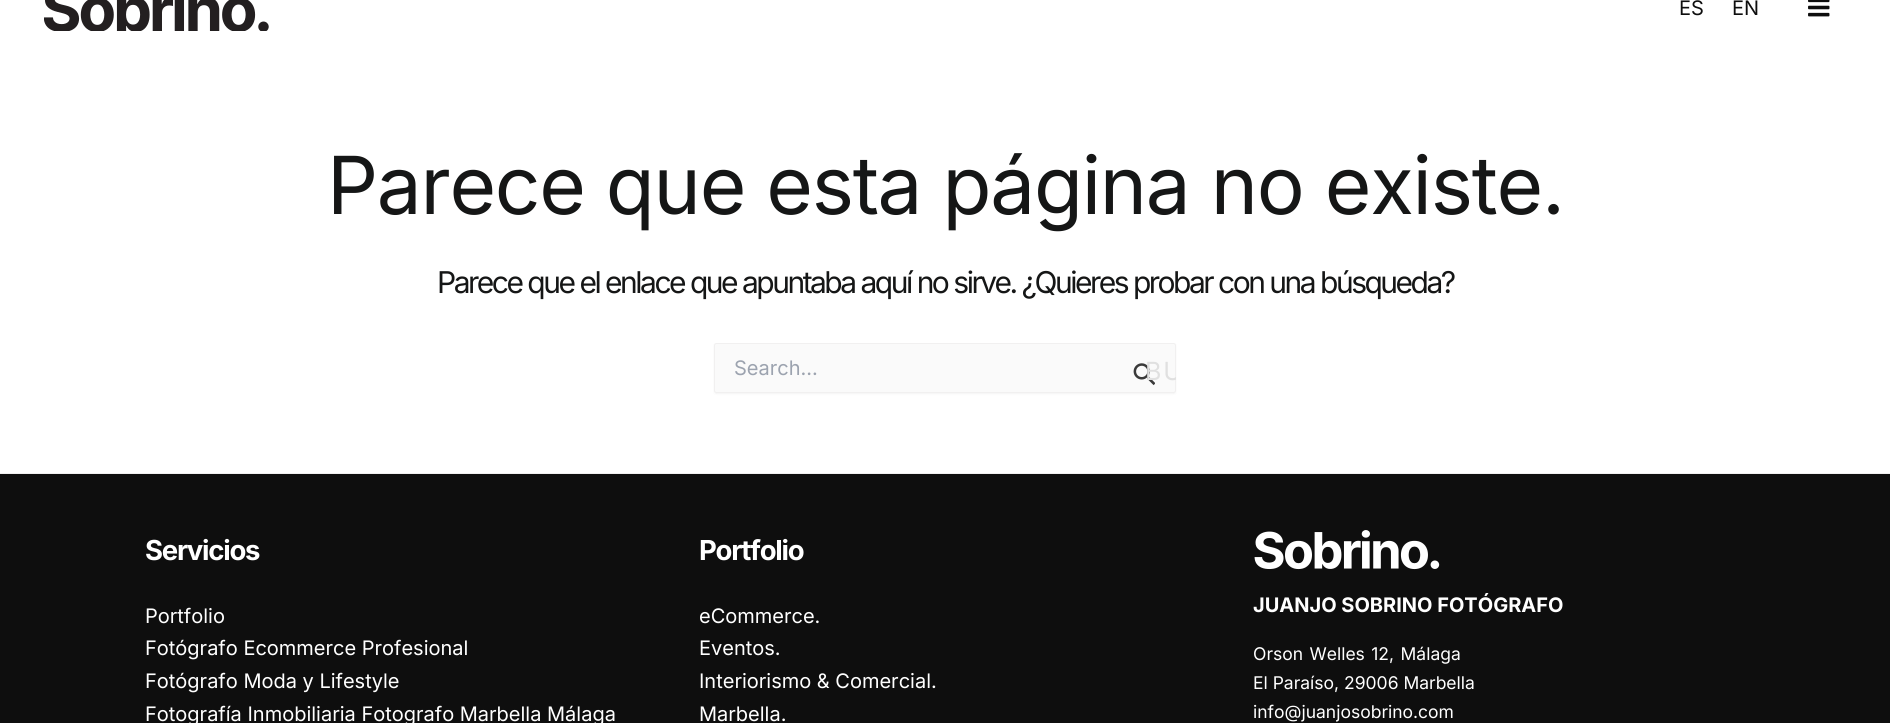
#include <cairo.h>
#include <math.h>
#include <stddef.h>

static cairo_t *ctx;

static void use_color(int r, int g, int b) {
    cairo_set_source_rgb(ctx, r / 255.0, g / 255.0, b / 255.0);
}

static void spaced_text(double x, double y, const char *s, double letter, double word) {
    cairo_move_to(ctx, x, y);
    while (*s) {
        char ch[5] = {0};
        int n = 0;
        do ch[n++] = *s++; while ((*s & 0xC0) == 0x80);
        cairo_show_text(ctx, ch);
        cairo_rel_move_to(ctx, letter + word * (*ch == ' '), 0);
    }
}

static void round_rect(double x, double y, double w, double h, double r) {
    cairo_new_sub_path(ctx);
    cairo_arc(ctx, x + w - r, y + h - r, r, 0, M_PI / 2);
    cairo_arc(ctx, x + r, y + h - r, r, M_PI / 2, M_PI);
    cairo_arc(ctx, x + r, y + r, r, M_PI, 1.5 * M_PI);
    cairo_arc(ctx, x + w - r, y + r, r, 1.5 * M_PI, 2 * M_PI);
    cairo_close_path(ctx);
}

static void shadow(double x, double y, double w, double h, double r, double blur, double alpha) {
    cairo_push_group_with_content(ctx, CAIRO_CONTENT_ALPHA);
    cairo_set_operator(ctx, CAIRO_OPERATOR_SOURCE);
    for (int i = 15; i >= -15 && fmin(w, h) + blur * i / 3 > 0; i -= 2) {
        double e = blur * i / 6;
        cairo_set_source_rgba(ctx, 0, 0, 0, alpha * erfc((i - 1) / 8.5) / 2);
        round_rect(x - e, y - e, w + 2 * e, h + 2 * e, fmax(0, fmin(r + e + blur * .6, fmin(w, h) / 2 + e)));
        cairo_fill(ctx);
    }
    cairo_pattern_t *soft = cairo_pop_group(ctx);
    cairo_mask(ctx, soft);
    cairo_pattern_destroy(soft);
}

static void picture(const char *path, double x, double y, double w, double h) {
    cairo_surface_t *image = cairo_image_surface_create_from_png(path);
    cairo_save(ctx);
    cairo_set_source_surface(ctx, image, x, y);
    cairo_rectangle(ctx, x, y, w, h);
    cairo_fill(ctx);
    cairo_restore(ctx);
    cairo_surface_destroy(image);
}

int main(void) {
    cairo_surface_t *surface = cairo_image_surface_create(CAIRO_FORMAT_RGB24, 1890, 723);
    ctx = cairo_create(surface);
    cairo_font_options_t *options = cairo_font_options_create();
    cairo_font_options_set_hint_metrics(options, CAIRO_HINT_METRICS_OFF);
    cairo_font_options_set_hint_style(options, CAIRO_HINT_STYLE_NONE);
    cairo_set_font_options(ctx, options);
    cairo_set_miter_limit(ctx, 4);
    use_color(255, 255, 255);
    cairo_paint(ctx);
    picture("img1.png", 44, 0, 225, 31);
    cairo_select_font_face(ctx, "Inter", CAIRO_FONT_SLANT_NORMAL, CAIRO_FONT_WEIGHT_NORMAL);
    cairo_set_font_size(ctx, 20);
    use_color(14, 14, 14);
    cairo_move_to(ctx, 1679, 15);
    cairo_show_text(ctx, "ES");
    cairo_move_to(ctx, 1732, 15);
    cairo_show_text(ctx, "EN");
    picture("img2.png", 1808, 0, 22, 17);
    cairo_set_font_size(ctx, 80);
    use_color(21, 22, 22);
    spaced_text(327, 214, "Parece que esta página no existe.", -1.25, 0);
    cairo_set_font_size(ctx, 30);
    spaced_text(437, 293, "Parece que el enlace que apuntaba aquí no sirve. ¿Quieres probar con una búsqueda?", -2.5, 0);
    use_color(0, 0, 0);
    shadow(714, 344, 462, 50, 2.5, 1, 0.05);
    use_color(250, 250, 250);
    round_rect(714.5, 343.5, 461, 49, 2);
    cairo_fill_preserve(ctx);
    use_color(241, 240, 240);
    cairo_set_line_width(ctx, 1);
    cairo_stroke(ctx);
    cairo_set_font_size(ctx, 20);
    use_color(156, 163, 175);
    cairo_move_to(ctx, 734, 375);
    cairo_show_text(ctx, "Search...");
    picture("img3.png", 1133, 363, 22, 23);
    cairo_save(ctx);
    round_rect(1120, 343, 56, 57, 2.5);
    cairo_clip(ctx);
    cairo_set_font_size(ctx, 25);
    use_color(224, 224, 224);
    spaced_text(1145, 380, "BU", 2, 0);
    cairo_restore(ctx);
    use_color(14, 14, 14);
    cairo_rectangle(ctx, 0, 474, 1890, 249);
    cairo_fill(ctx);
    use_color(241, 240, 240);
    cairo_rectangle(ctx, 0, 473, 1890, 1);
    cairo_fill(ctx);
    cairo_select_font_face(ctx, "Inter", CAIRO_FONT_SLANT_NORMAL, CAIRO_FONT_WEIGHT_BOLD);
    cairo_set_font_size(ctx, 27.5);
    use_color(255, 255, 255);
    spaced_text(145, 560, "Servicios", -1.25, 0);
    cairo_select_font_face(ctx, "Inter", CAIRO_FONT_SLANT_NORMAL, CAIRO_FONT_WEIGHT_NORMAL);
    cairo_set_font_size(ctx, 20);
    cairo_move_to(ctx, 145, 623);
    cairo_show_text(ctx, "Portfolio");
    cairo_move_to(ctx, 145, 655);
    cairo_show_text(ctx, "Fotógrafo Ecommerce Profesional");
    cairo_move_to(ctx, 145, 688);
    cairo_show_text(ctx, "Fotógrafo Moda y Lifestyle");
    cairo_move_to(ctx, 145, 721);
    cairo_show_text(ctx, "Fotografía Inmobiliaria Fotografo Marbella Málaga");
    cairo_select_font_face(ctx, "Inter", CAIRO_FONT_SLANT_NORMAL, CAIRO_FONT_WEIGHT_BOLD);
    cairo_set_font_size(ctx, 27.5);
    spaced_text(699, 560, "Portfolio", -1.25, 0);
    cairo_select_font_face(ctx, "Inter", CAIRO_FONT_SLANT_NORMAL, CAIRO_FONT_WEIGHT_NORMAL);
    cairo_set_font_size(ctx, 20);
    cairo_move_to(ctx, 699, 623);
    cairo_show_text(ctx, "eCommerce.");
    cairo_move_to(ctx, 699, 655);
    cairo_show_text(ctx, "Eventos.");
    cairo_move_to(ctx, 699, 688);
    cairo_show_text(ctx, "Interiorismo & Comercial.");
    cairo_move_to(ctx, 699, 721);
    cairo_show_text(ctx, "Marbella.");
    picture("img4.png", 1254, 530, 186, 40);
    cairo_select_font_face(ctx, "Inter", CAIRO_FONT_SLANT_NORMAL, CAIRO_FONT_WEIGHT_BOLD);
    cairo_move_to(ctx, 1253, 612);
    cairo_show_text(ctx, "JUANJO SOBRINO FOTÓGRAFO");
    cairo_select_font_face(ctx, "Inter", CAIRO_FONT_SLANT_NORMAL, CAIRO_FONT_WEIGHT_NORMAL);
    cairo_set_font_size(ctx, 17.5);
    spaced_text(1253, 660, "Orson Welles 12, Málaga", 0, 1.5);
    cairo_move_to(ctx, 1253, 689);
    cairo_show_text(ctx, "El Paraíso, 29006 Marbella");
    cairo_move_to(ctx, 1253, 718);
    cairo_show_text(ctx, "info@juanjosobrino.com");
    cairo_surface_write_to_png(surface, "result.png");
    cairo_font_options_destroy(options);
    cairo_destroy(ctx);
    cairo_surface_destroy(surface);
    return 0;
}
